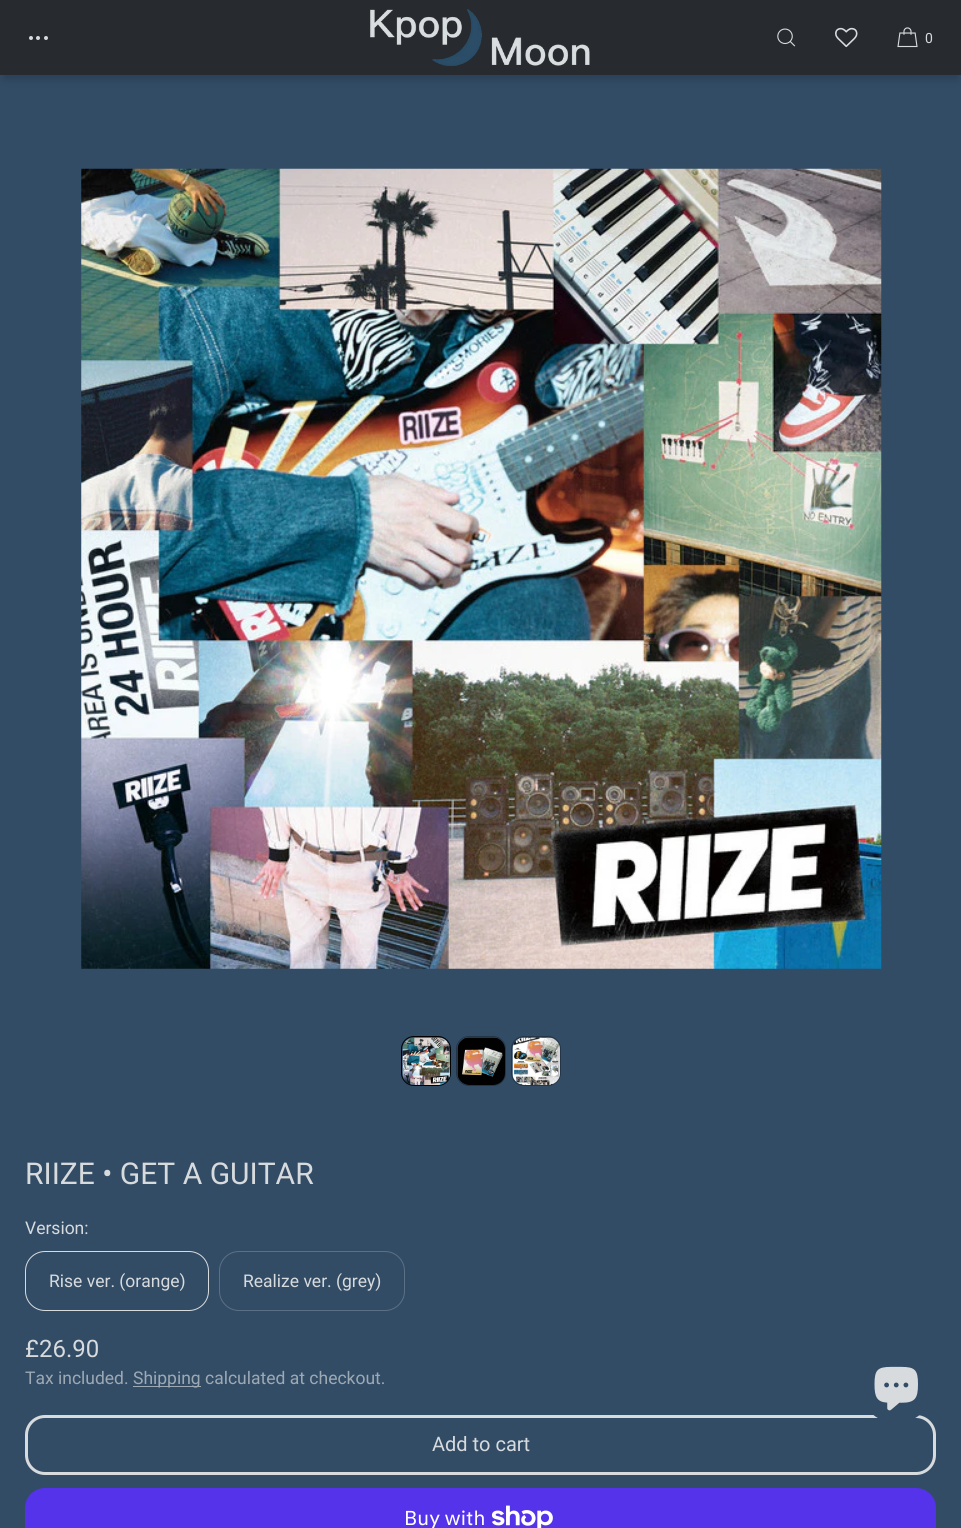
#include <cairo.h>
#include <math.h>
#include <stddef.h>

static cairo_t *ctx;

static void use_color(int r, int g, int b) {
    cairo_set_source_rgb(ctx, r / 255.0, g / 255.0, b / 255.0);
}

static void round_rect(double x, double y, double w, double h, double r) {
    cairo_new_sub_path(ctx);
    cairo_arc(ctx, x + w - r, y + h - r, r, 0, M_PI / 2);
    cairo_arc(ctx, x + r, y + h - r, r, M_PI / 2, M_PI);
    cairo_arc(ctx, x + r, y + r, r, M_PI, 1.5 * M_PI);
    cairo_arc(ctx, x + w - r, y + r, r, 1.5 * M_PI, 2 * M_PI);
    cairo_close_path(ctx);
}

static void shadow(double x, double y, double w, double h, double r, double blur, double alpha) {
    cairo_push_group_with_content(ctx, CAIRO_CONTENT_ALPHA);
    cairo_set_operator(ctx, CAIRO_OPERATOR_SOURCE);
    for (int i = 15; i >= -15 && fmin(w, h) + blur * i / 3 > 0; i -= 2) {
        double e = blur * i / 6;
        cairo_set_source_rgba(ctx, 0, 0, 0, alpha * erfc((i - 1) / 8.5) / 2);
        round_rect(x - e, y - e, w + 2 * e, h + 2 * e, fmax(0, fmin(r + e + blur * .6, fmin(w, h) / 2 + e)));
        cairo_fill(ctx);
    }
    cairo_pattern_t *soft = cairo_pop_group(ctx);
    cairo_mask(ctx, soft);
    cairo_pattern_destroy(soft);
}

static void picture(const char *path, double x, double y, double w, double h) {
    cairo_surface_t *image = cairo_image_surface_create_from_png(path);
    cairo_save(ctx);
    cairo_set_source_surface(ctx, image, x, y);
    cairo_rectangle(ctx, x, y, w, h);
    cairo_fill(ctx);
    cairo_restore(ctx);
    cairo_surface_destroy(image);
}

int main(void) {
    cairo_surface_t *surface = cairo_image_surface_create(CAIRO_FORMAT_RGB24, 961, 1528);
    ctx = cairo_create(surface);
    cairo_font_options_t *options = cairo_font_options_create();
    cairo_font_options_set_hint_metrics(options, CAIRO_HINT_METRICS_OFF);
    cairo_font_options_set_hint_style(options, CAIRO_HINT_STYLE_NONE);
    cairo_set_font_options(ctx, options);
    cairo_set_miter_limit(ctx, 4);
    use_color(50, 76, 102);
    cairo_paint(ctx);
    use_color(0, 0, 0);
    shadow(4, 11, 954, 68, 0, 4.5, 0.18);
    use_color(39, 42, 46);
    cairo_rectangle(ctx, 0, 0, 961, 75);
    cairo_fill(ctx);
    use_color(215, 219, 221);
    cairo_arc(ctx, 31, 38, 2, 0, 2 * M_PI);
    cairo_fill(ctx);
    cairo_arc(ctx, 38, 38, 2, 0, 2 * M_PI);
    cairo_fill(ctx);
    cairo_arc(ctx, 46, 38, 2, 0, 2 * M_PI);
    cairo_fill(ctx);
    picture("img1.png", 370, 9, 220, 57);
    picture("img2.png", 777, 28, 19, 19);
    picture("img3.png", 835, 27, 23, 21);
    picture("img4.png", 897, 27, 21, 21);
    cairo_select_font_face(ctx, "Roboto", CAIRO_FONT_SLANT_NORMAL, CAIRO_FONT_WEIGHT_NORMAL);
    cairo_set_font_size(ctx, 14);
    cairo_move_to(ctx, 925, 43);
    cairo_show_text(ctx, "0");
    picture("img5.png", 81, 168, 801, 801);
    round_rect(401.5, 1036.5, 49, 49, 12.5);
    use_color(0, 0, 0);
    cairo_set_line_width(ctx, 1);
    cairo_stroke(ctx);
    picture("img6.png", 402, 1037, 48, 48);
    round_rect(456.5, 1036.5, 49, 49, 12.5);
    use_color(35, 53, 71);
    cairo_stroke(ctx);
    picture("img7.png", 457, 1037, 48, 48);
    round_rect(511.5, 1036.5, 49, 49, 12.5);
    cairo_stroke(ctx);
    picture("img8.png", 512, 1037, 48, 48);
    cairo_set_font_size(ctx, 30);
    use_color(215, 219, 221);
    cairo_move_to(ctx, 25, 1184);
    cairo_show_text(ctx, "RIIZE • GET A GUITAR");
    cairo_set_font_size(ctx, 17.5);
    cairo_move_to(ctx, 25, 1234);
    cairo_show_text(ctx, "Version:");
    round_rect(25.5, 1251.5, 183, 59, 19.5);
    cairo_stroke(ctx);
    cairo_move_to(ctx, 49, 1287);
    cairo_show_text(ctx, "Rise ver. (orange)");
    round_rect(219.5, 1251.5, 185, 59, 19.5);
    use_color(91, 112, 132);
    cairo_stroke(ctx);
    use_color(215, 219, 221);
    cairo_move_to(ctx, 243, 1287);
    cairo_show_text(ctx, "Realize ver. (grey)");
    cairo_set_font_size(ctx, 24);
    cairo_move_to(ctx, 25, 1357);
    cairo_show_text(ctx, "£26.90");
    cairo_set_font_size(ctx, 17.5);
    use_color(157, 169, 179);
    cairo_move_to(ctx, 25, 1384);
    cairo_show_text(ctx, "Tax included.");
    cairo_rectangle(ctx, 133, 1386, 68, 1);
    cairo_fill(ctx);
    cairo_move_to(ctx, 133, 1384);
    cairo_show_text(ctx, "Shipping calculated at checkout.");
    round_rect(26.5, 1416.5, 908, 57, 18.5);
    use_color(215, 219, 221);
    cairo_set_line_width(ctx, 3);
    cairo_stroke(ctx);
    cairo_set_font_size(ctx, 20);
    cairo_move_to(ctx, 432, 1451);
    cairo_show_text(ctx, "Add to cart");
    use_color(84, 51, 235);
    round_rect(25, 1488, 911, 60, 20);
    cairo_fill(ctx);
    cairo_select_font_face(ctx, "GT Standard", CAIRO_FONT_SLANT_NORMAL, CAIRO_FONT_WEIGHT_NORMAL);
    use_color(255, 255, 255);
    cairo_move_to(ctx, 404, 1525);
    cairo_show_text(ctx, "Buy with");
    picture("img9.png", 491, 1505, 62, 23);
    use_color(50, 76, 102);
    cairo_arc(ctx, 896.5, 1385.5, 37.5, 0, 2 * M_PI);
    cairo_fill(ctx);
    picture("img10.png", 874, 1366, 44, 45);
    cairo_surface_write_to_png(surface, "result.png");
    cairo_font_options_destroy(options);
    cairo_destroy(ctx);
    cairo_surface_destroy(surface);
    return 0;
}
